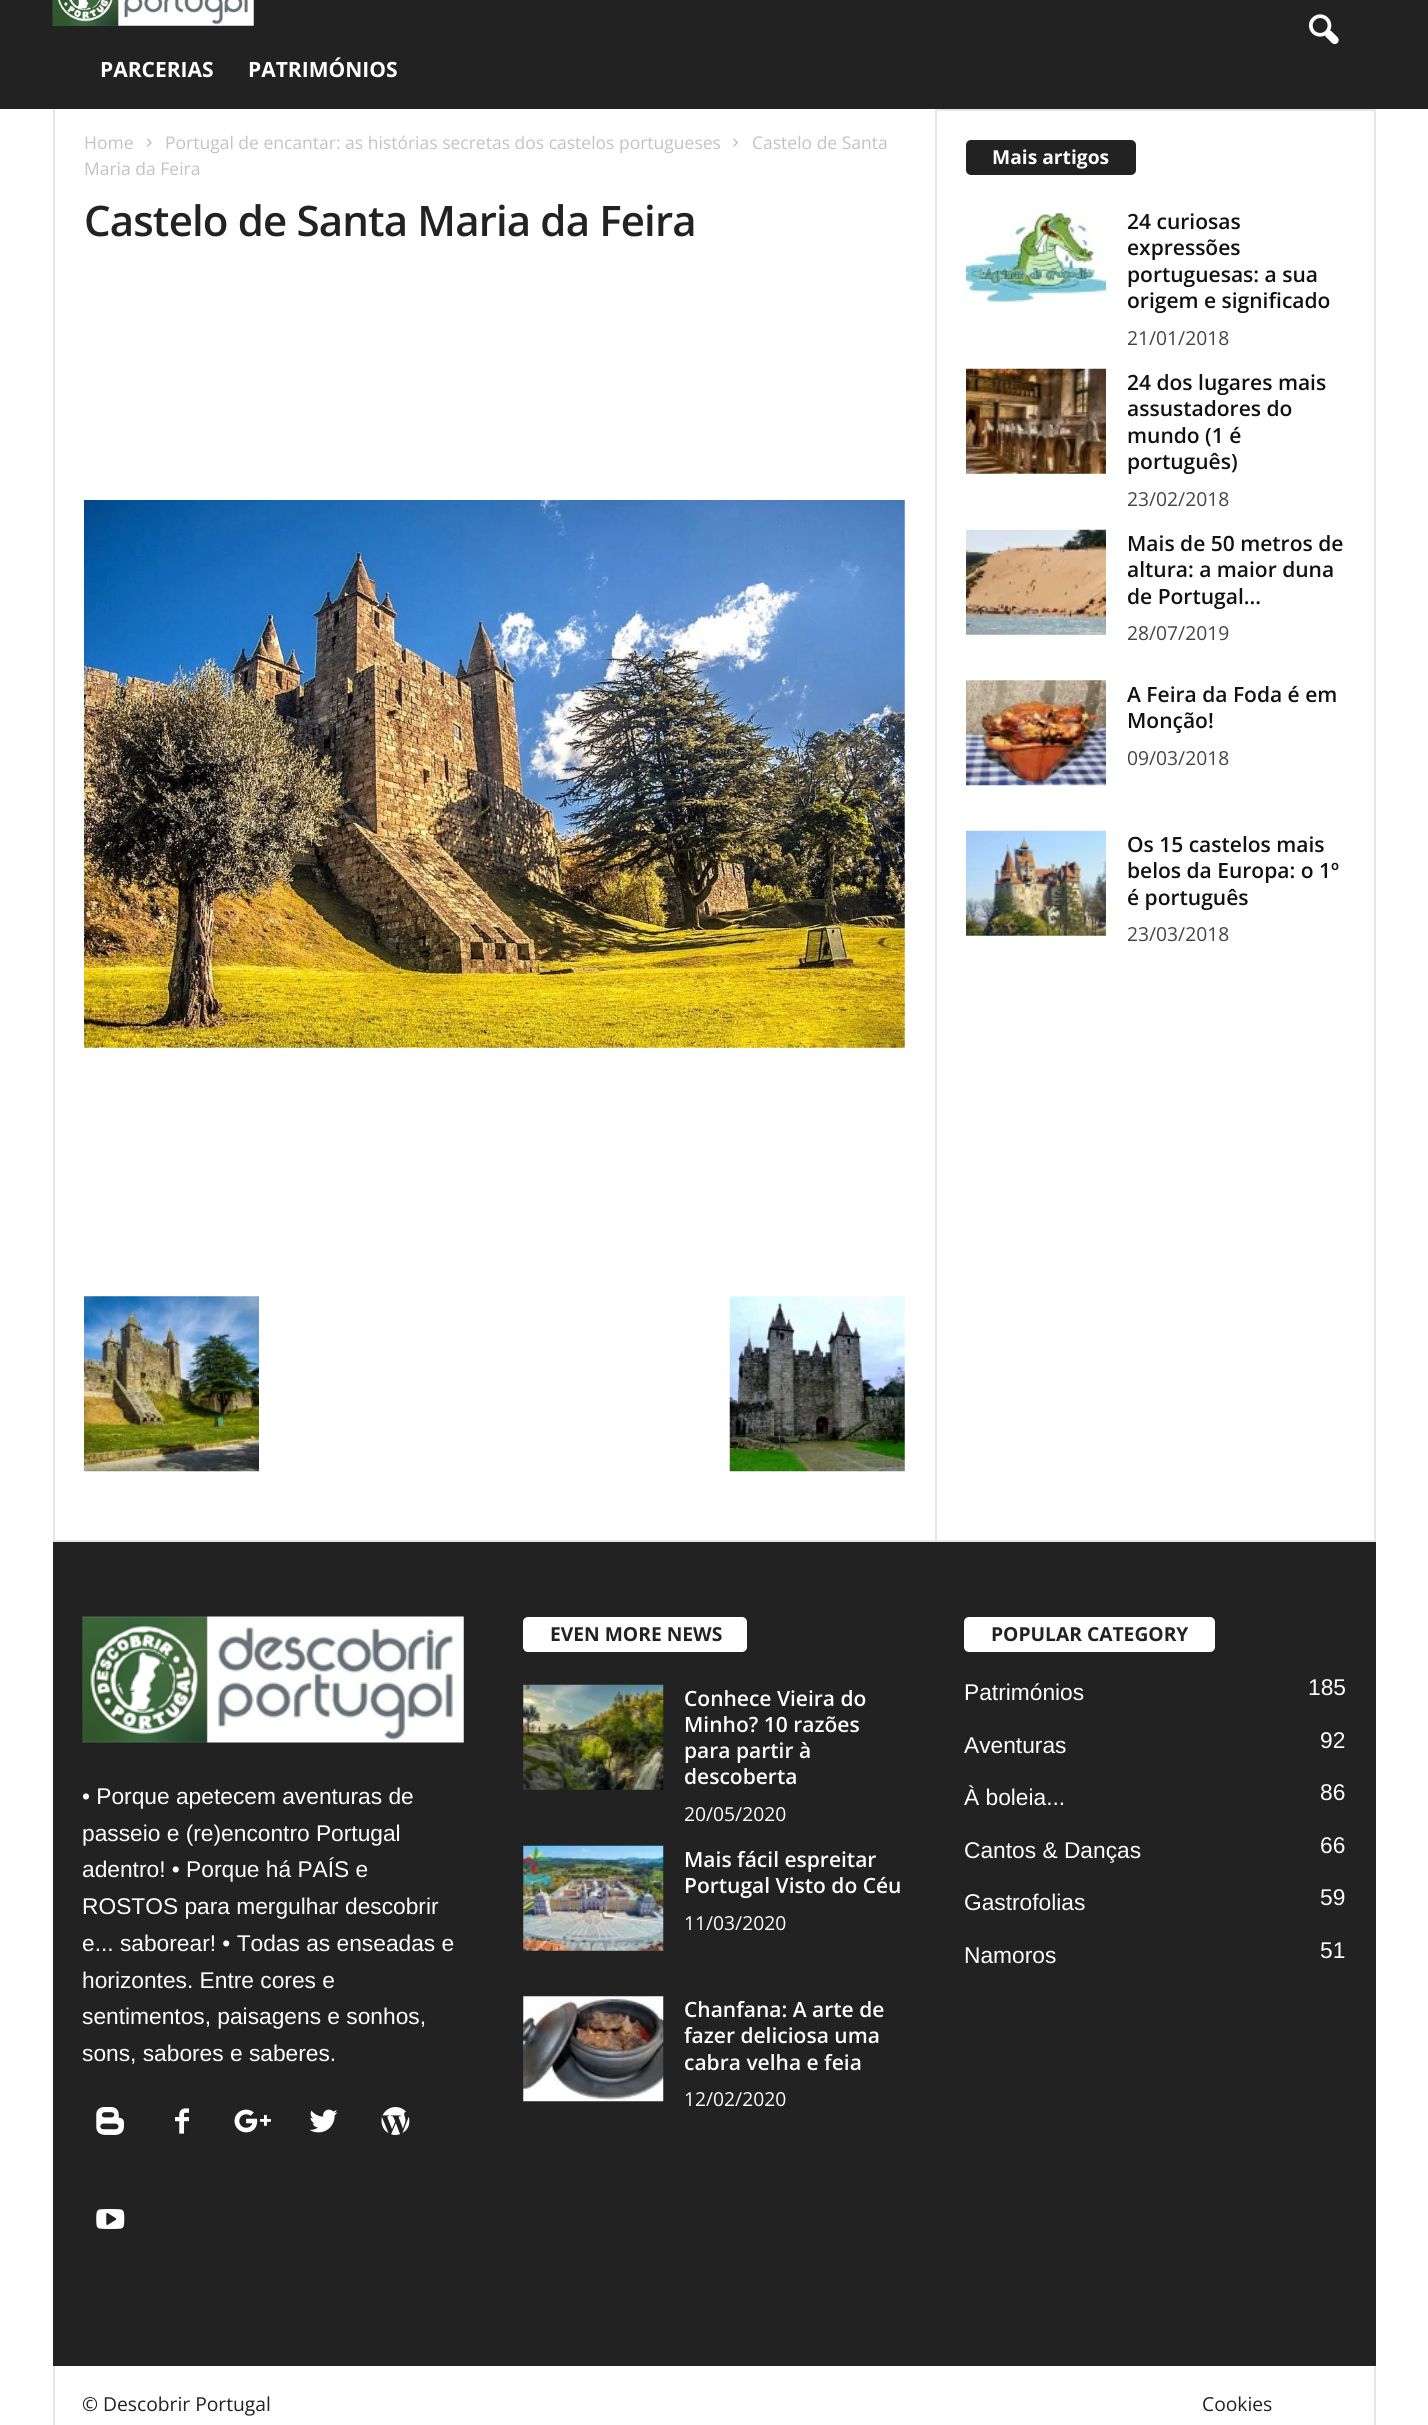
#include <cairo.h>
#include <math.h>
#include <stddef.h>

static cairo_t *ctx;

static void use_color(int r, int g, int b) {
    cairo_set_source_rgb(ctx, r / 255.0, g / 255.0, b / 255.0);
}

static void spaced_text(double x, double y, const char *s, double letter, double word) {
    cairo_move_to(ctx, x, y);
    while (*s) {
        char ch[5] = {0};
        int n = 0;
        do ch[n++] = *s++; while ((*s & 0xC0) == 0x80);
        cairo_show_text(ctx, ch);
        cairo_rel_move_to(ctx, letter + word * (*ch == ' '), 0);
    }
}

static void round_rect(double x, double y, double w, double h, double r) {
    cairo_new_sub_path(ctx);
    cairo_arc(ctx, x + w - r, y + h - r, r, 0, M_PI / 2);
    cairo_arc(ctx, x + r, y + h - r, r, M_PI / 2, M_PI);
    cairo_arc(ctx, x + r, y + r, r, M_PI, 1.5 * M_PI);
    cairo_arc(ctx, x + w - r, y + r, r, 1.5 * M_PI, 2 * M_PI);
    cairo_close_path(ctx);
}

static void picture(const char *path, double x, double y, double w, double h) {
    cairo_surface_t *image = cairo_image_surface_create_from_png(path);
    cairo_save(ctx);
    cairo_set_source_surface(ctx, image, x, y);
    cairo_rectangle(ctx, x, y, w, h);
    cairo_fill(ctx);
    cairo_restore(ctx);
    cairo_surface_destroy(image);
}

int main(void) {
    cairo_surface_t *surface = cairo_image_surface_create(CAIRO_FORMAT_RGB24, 1428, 2425);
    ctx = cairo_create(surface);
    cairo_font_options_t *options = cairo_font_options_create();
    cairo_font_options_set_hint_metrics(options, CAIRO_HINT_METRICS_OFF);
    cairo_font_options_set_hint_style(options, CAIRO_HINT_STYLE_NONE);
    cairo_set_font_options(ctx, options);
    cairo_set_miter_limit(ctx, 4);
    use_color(255, 255, 255);
    cairo_paint(ctx);
    use_color(34, 34, 34);
    cairo_rectangle(ctx, 0, 0, 1428, 109);
    cairo_fill(ctx);
    picture("img1.png", 1309, 14, 30, 31);
    picture("img2.png", 52, 0, 202, 26);
    cairo_select_font_face(ctx, "Open Sans", CAIRO_FONT_SLANT_NORMAL, CAIRO_FONT_WEIGHT_BOLD);
    cairo_set_font_size(ctx, 21);
    use_color(255, 255, 255);
    cairo_move_to(ctx, 100, 77);
    cairo_show_text(ctx, "PARCERIAS");
    cairo_move_to(ctx, 248, 77);
    cairo_show_text(ctx, "PATRIMÓNIOS");
    use_color(230, 230, 230);
    cairo_rectangle(ctx, 53, 1540, 1323, 2);
    cairo_fill(ctx);
    cairo_rectangle(ctx, 53, 109, 2, 1431);
    cairo_fill(ctx);
    cairo_select_font_face(ctx, "Open Sans", CAIRO_FONT_SLANT_NORMAL, CAIRO_FONT_WEIGHT_NORMAL);
    cairo_set_font_size(ctx, 17.5);
    use_color(195, 195, 195);
    cairo_move_to(ctx, 84, 149);
    cairo_show_text(ctx, "Home");
    picture("img3.png", 147, 138, 5, 9);
    cairo_move_to(ctx, 165, 149);
    cairo_show_text(ctx, "Portugal de encantar: as histórias secretas dos castelos portugueses");
    picture("img4.png", 733, 138, 5, 9);
    cairo_move_to(ctx, 752, 149);
    cairo_show_text(ctx, "Castelo de Santa");
    cairo_move_to(ctx, 84, 175);
    cairo_show_text(ctx, "Maria da Feira");
    cairo_select_font_face(ctx, "Open Sans SemiBold", CAIRO_FONT_SLANT_NORMAL, CAIRO_FONT_WEIGHT_NORMAL);
    cairo_set_font_size(ctx, 42);
    use_color(34, 34, 34);
    spaced_text(84, 236, "Castelo de Santa Maria da Feira", -0.85, 0);
    picture("img5.png", 84, 500, 821, 548);
    picture("img6.png", 84, 1296, 175, 176);
    picture("img7.png", 729, 1296, 176, 176);
    use_color(230, 230, 230);
    cairo_rectangle(ctx, 935, 109, 2, 1431);
    cairo_fill(ctx);
    cairo_rectangle(ctx, 1374, 109, 2, 1431);
    cairo_fill(ctx);
    cairo_rectangle(ctx, 936, 109, 440, 2);
    cairo_fill(ctx);
    use_color(34, 34, 34);
    round_rect(966, 140, 170, 35, 5);
    cairo_fill(ctx);
    cairo_select_font_face(ctx, "Open Sans", CAIRO_FONT_SLANT_NORMAL, CAIRO_FONT_WEIGHT_BOLD);
    cairo_set_font_size(ctx, 19.25);
    use_color(255, 255, 255);
    cairo_move_to(ctx, 992, 164);
    cairo_show_text(ctx, "Mais artigos");
    picture("img8.png", 966, 208, 140, 99);
    cairo_select_font_face(ctx, "Open Sans SemiBold", CAIRO_FONT_SLANT_NORMAL, CAIRO_FONT_WEIGHT_NORMAL);
    cairo_set_font_size(ctx, 21);
    use_color(17, 17, 17);
    cairo_move_to(ctx, 1127, 229);
    cairo_show_text(ctx, "24 curiosas");
    cairo_move_to(ctx, 1127, 255);
    cairo_show_text(ctx, "expressões");
    cairo_move_to(ctx, 1127, 282);
    cairo_show_text(ctx, "portuguesas: a sua");
    cairo_move_to(ctx, 1127, 308);
    cairo_show_text(ctx, "origem e significado");
    cairo_select_font_face(ctx, "Open Sans", CAIRO_FONT_SLANT_NORMAL, CAIRO_FONT_WEIGHT_NORMAL);
    cairo_set_font_size(ctx, 19.25);
    use_color(68, 68, 68);
    cairo_move_to(ctx, 1127, 345);
    cairo_show_text(ctx, "21/01/2018");
    picture("img9.png", 966, 368, 140, 106);
    cairo_select_font_face(ctx, "Open Sans SemiBold", CAIRO_FONT_SLANT_NORMAL, CAIRO_FONT_WEIGHT_NORMAL);
    cairo_set_font_size(ctx, 21);
    use_color(17, 17, 17);
    cairo_move_to(ctx, 1127, 390);
    cairo_show_text(ctx, "24 dos lugares mais");
    cairo_move_to(ctx, 1127, 416);
    cairo_show_text(ctx, "assustadores do");
    cairo_move_to(ctx, 1127, 443);
    cairo_show_text(ctx, "mundo (1 é");
    cairo_move_to(ctx, 1127, 469);
    cairo_show_text(ctx, "português)");
    cairo_select_font_face(ctx, "Open Sans", CAIRO_FONT_SLANT_NORMAL, CAIRO_FONT_WEIGHT_NORMAL);
    cairo_set_font_size(ctx, 19.25);
    use_color(68, 68, 68);
    cairo_move_to(ctx, 1127, 506);
    cairo_show_text(ctx, "23/02/2018");
    picture("img10.png", 966, 529, 140, 106);
    cairo_select_font_face(ctx, "Open Sans SemiBold", CAIRO_FONT_SLANT_NORMAL, CAIRO_FONT_WEIGHT_NORMAL);
    cairo_set_font_size(ctx, 21);
    use_color(17, 17, 17);
    cairo_move_to(ctx, 1127, 551);
    cairo_show_text(ctx, "Mais de 50 metros de");
    cairo_move_to(ctx, 1127, 577);
    cairo_show_text(ctx, "altura: a maior duna");
    cairo_move_to(ctx, 1127, 604);
    cairo_show_text(ctx, "de Portugal...");
    cairo_select_font_face(ctx, "Open Sans", CAIRO_FONT_SLANT_NORMAL, CAIRO_FONT_WEIGHT_NORMAL);
    cairo_set_font_size(ctx, 19.25);
    use_color(68, 68, 68);
    cairo_move_to(ctx, 1127, 640);
    cairo_show_text(ctx, "28/07/2019");
    picture("img11.png", 966, 680, 140, 106);
    cairo_select_font_face(ctx, "Open Sans SemiBold", CAIRO_FONT_SLANT_NORMAL, CAIRO_FONT_WEIGHT_NORMAL);
    cairo_set_font_size(ctx, 21);
    use_color(17, 17, 17);
    cairo_move_to(ctx, 1127, 702);
    cairo_show_text(ctx, "A Feira da Foda é em");
    cairo_move_to(ctx, 1127, 728);
    cairo_show_text(ctx, "Monção!");
    cairo_select_font_face(ctx, "Open Sans", CAIRO_FONT_SLANT_NORMAL, CAIRO_FONT_WEIGHT_NORMAL);
    cairo_set_font_size(ctx, 19.25);
    use_color(68, 68, 68);
    cairo_move_to(ctx, 1127, 765);
    cairo_show_text(ctx, "09/03/2018");
    picture("img12.png", 966, 830, 140, 106);
    cairo_select_font_face(ctx, "Open Sans SemiBold", CAIRO_FONT_SLANT_NORMAL, CAIRO_FONT_WEIGHT_NORMAL);
    cairo_set_font_size(ctx, 21);
    use_color(17, 17, 17);
    cairo_move_to(ctx, 1127, 852);
    cairo_show_text(ctx, "Os 15 castelos mais");
    cairo_move_to(ctx, 1127, 878);
    cairo_show_text(ctx, "belos da Europa: o 1º");
    cairo_move_to(ctx, 1127, 905);
    cairo_show_text(ctx, "é português");
    cairo_select_font_face(ctx, "Open Sans", CAIRO_FONT_SLANT_NORMAL, CAIRO_FONT_WEIGHT_NORMAL);
    cairo_set_font_size(ctx, 19.25);
    use_color(68, 68, 68);
    cairo_move_to(ctx, 1127, 941);
    cairo_show_text(ctx, "23/03/2018");
    use_color(34, 34, 34);
    cairo_rectangle(ctx, 53, 1542, 1323, 824);
    cairo_fill(ctx);
    picture("img13.png", 82, 1616, 382, 127);
    cairo_select_font_face(ctx, "Liberation Sans", CAIRO_FONT_SLANT_NORMAL, CAIRO_FONT_WEIGHT_NORMAL);
    cairo_set_font_size(ctx, 22.75);
    use_color(255, 255, 255);
    cairo_move_to(ctx, 82, 1804);
    cairo_show_text(ctx, "• Porque apetecem aventuras de");
    cairo_move_to(ctx, 82, 1841);
    cairo_show_text(ctx, "passeio e (re)encontro Portugal");
    cairo_move_to(ctx, 82, 1877);
    cairo_show_text(ctx, "adentro! • Porque há PAÍS e");
    cairo_move_to(ctx, 82, 1914);
    cairo_show_text(ctx, "ROSTOS para mergulhar descobrir");
    cairo_move_to(ctx, 82, 1951);
    cairo_show_text(ctx, "e... saborear! • Todas as enseadas e");
    cairo_move_to(ctx, 82, 1988);
    cairo_show_text(ctx, "horizontes. Entre cores e");
    cairo_move_to(ctx, 82, 2024);
    cairo_show_text(ctx, "sentimentos, paisagens e sonhos,");
    cairo_move_to(ctx, 82, 2061);
    cairo_show_text(ctx, "sons, sabores e saberes.");
    picture("img14.png", 96, 2107, 28, 28);
    picture("img15.png", 175, 2108, 14, 26);
    picture("img16.png", 234, 2109, 37, 24);
    picture("img17.png", 309, 2109, 29, 24);
    picture("img18.png", 381, 2107, 29, 28);
    picture("img19.png", 96, 2209, 29, 20);
    round_rect(523, 1617, 224, 35, 5);
    cairo_fill(ctx);
    cairo_select_font_face(ctx, "Open Sans", CAIRO_FONT_SLANT_NORMAL, CAIRO_FONT_WEIGHT_BOLD);
    cairo_set_font_size(ctx, 19.25);
    use_color(34, 34, 34);
    cairo_move_to(ctx, 550, 1641);
    cairo_show_text(ctx, "EVEN MORE NEWS");
    picture("img20.png", 523, 1684, 141, 106);
    cairo_select_font_face(ctx, "Open Sans SemiBold", CAIRO_FONT_SLANT_NORMAL, CAIRO_FONT_WEIGHT_NORMAL);
    cairo_set_font_size(ctx, 21);
    use_color(255, 255, 255);
    cairo_move_to(ctx, 684, 1706);
    cairo_show_text(ctx, "Conhece Vieira do");
    cairo_move_to(ctx, 684, 1732);
    cairo_show_text(ctx, "Minho? 10 razões");
    cairo_move_to(ctx, 684, 1758);
    cairo_show_text(ctx, "para partir à");
    cairo_move_to(ctx, 684, 1784);
    cairo_show_text(ctx, "descoberta");
    cairo_select_font_face(ctx, "Open Sans", CAIRO_FONT_SLANT_NORMAL, CAIRO_FONT_WEIGHT_NORMAL);
    cairo_set_font_size(ctx, 19.25);
    cairo_move_to(ctx, 684, 1821);
    cairo_show_text(ctx, "20/05/2020");
    picture("img21.png", 523, 1845, 141, 106);
    cairo_select_font_face(ctx, "Open Sans SemiBold", CAIRO_FONT_SLANT_NORMAL, CAIRO_FONT_WEIGHT_NORMAL);
    cairo_set_font_size(ctx, 21);
    cairo_move_to(ctx, 684, 1867);
    cairo_show_text(ctx, "Mais fácil espreitar");
    cairo_move_to(ctx, 684, 1893);
    cairo_show_text(ctx, "Portugal Visto do Céu");
    cairo_select_font_face(ctx, "Open Sans", CAIRO_FONT_SLANT_NORMAL, CAIRO_FONT_WEIGHT_NORMAL);
    cairo_set_font_size(ctx, 19.25);
    cairo_move_to(ctx, 684, 1930);
    cairo_show_text(ctx, "11/03/2020");
    picture("img22.png", 523, 1996, 141, 106);
    cairo_select_font_face(ctx, "Open Sans SemiBold", CAIRO_FONT_SLANT_NORMAL, CAIRO_FONT_WEIGHT_NORMAL);
    cairo_set_font_size(ctx, 21);
    cairo_move_to(ctx, 684, 2017);
    cairo_show_text(ctx, "Chanfana: A arte de");
    cairo_move_to(ctx, 684, 2043);
    cairo_show_text(ctx, "fazer deliciosa uma");
    cairo_move_to(ctx, 684, 2070);
    cairo_show_text(ctx, "cabra velha e feia");
    cairo_select_font_face(ctx, "Open Sans", CAIRO_FONT_SLANT_NORMAL, CAIRO_FONT_WEIGHT_NORMAL);
    cairo_set_font_size(ctx, 19.25);
    cairo_move_to(ctx, 684, 2106);
    cairo_show_text(ctx, "12/02/2020");
    round_rect(964, 1617, 251, 35, 5);
    cairo_fill(ctx);
    cairo_select_font_face(ctx, "Open Sans", CAIRO_FONT_SLANT_NORMAL, CAIRO_FONT_WEIGHT_BOLD);
    use_color(34, 34, 34);
    cairo_move_to(ctx, 991, 1641);
    cairo_show_text(ctx, "POPULAR CATEGORY");
    cairo_select_font_face(ctx, "Liberation Sans", CAIRO_FONT_SLANT_NORMAL, CAIRO_FONT_WEIGHT_NORMAL);
    cairo_set_font_size(ctx, 22.75);
    use_color(255, 255, 255);
    cairo_move_to(ctx, 964, 1700);
    cairo_show_text(ctx, "Patrimónios");
    cairo_move_to(ctx, 1308, 1695);
    cairo_show_text(ctx, "185");
    cairo_move_to(ctx, 964, 1753);
    cairo_show_text(ctx, "Aventuras");
    cairo_move_to(ctx, 1320, 1748);
    cairo_show_text(ctx, "92");
    cairo_move_to(ctx, 964, 1805);
    cairo_show_text(ctx, "À boleia...");
    cairo_move_to(ctx, 1320, 1800);
    cairo_show_text(ctx, "86");
    cairo_move_to(ctx, 964, 1858);
    cairo_show_text(ctx, "Cantos & Danças");
    cairo_move_to(ctx, 1320, 1853);
    cairo_show_text(ctx, "66");
    cairo_move_to(ctx, 964, 1910);
    cairo_show_text(ctx, "Gastrofolias");
    cairo_move_to(ctx, 1320, 1905);
    cairo_show_text(ctx, "59");
    cairo_move_to(ctx, 964, 1963);
    cairo_show_text(ctx, "Namoros");
    cairo_move_to(ctx, 1320, 1958);
    cairo_show_text(ctx, "51");
    use_color(230, 230, 230);
    cairo_rectangle(ctx, 53, 2366, 2, 59);
    cairo_fill(ctx);
    cairo_select_font_face(ctx, "Open Sans", CAIRO_FONT_SLANT_NORMAL, CAIRO_FONT_WEIGHT_NORMAL);
    cairo_set_font_size(ctx, 19.25);
    use_color(34, 34, 34);
    cairo_move_to(ctx, 82, 2411);
    cairo_show_text(ctx, "© Descobrir Portugal");
    cairo_move_to(ctx, 1202, 2411);
    cairo_show_text(ctx, "Cookies");
    use_color(230, 230, 230);
    cairo_rectangle(ctx, 1374, 2366, 2, 59);
    cairo_fill(ctx);
    cairo_surface_write_to_png(surface, "result.png");
    cairo_font_options_destroy(options);
    cairo_destroy(ctx);
    cairo_surface_destroy(surface);
    return 0;
}
